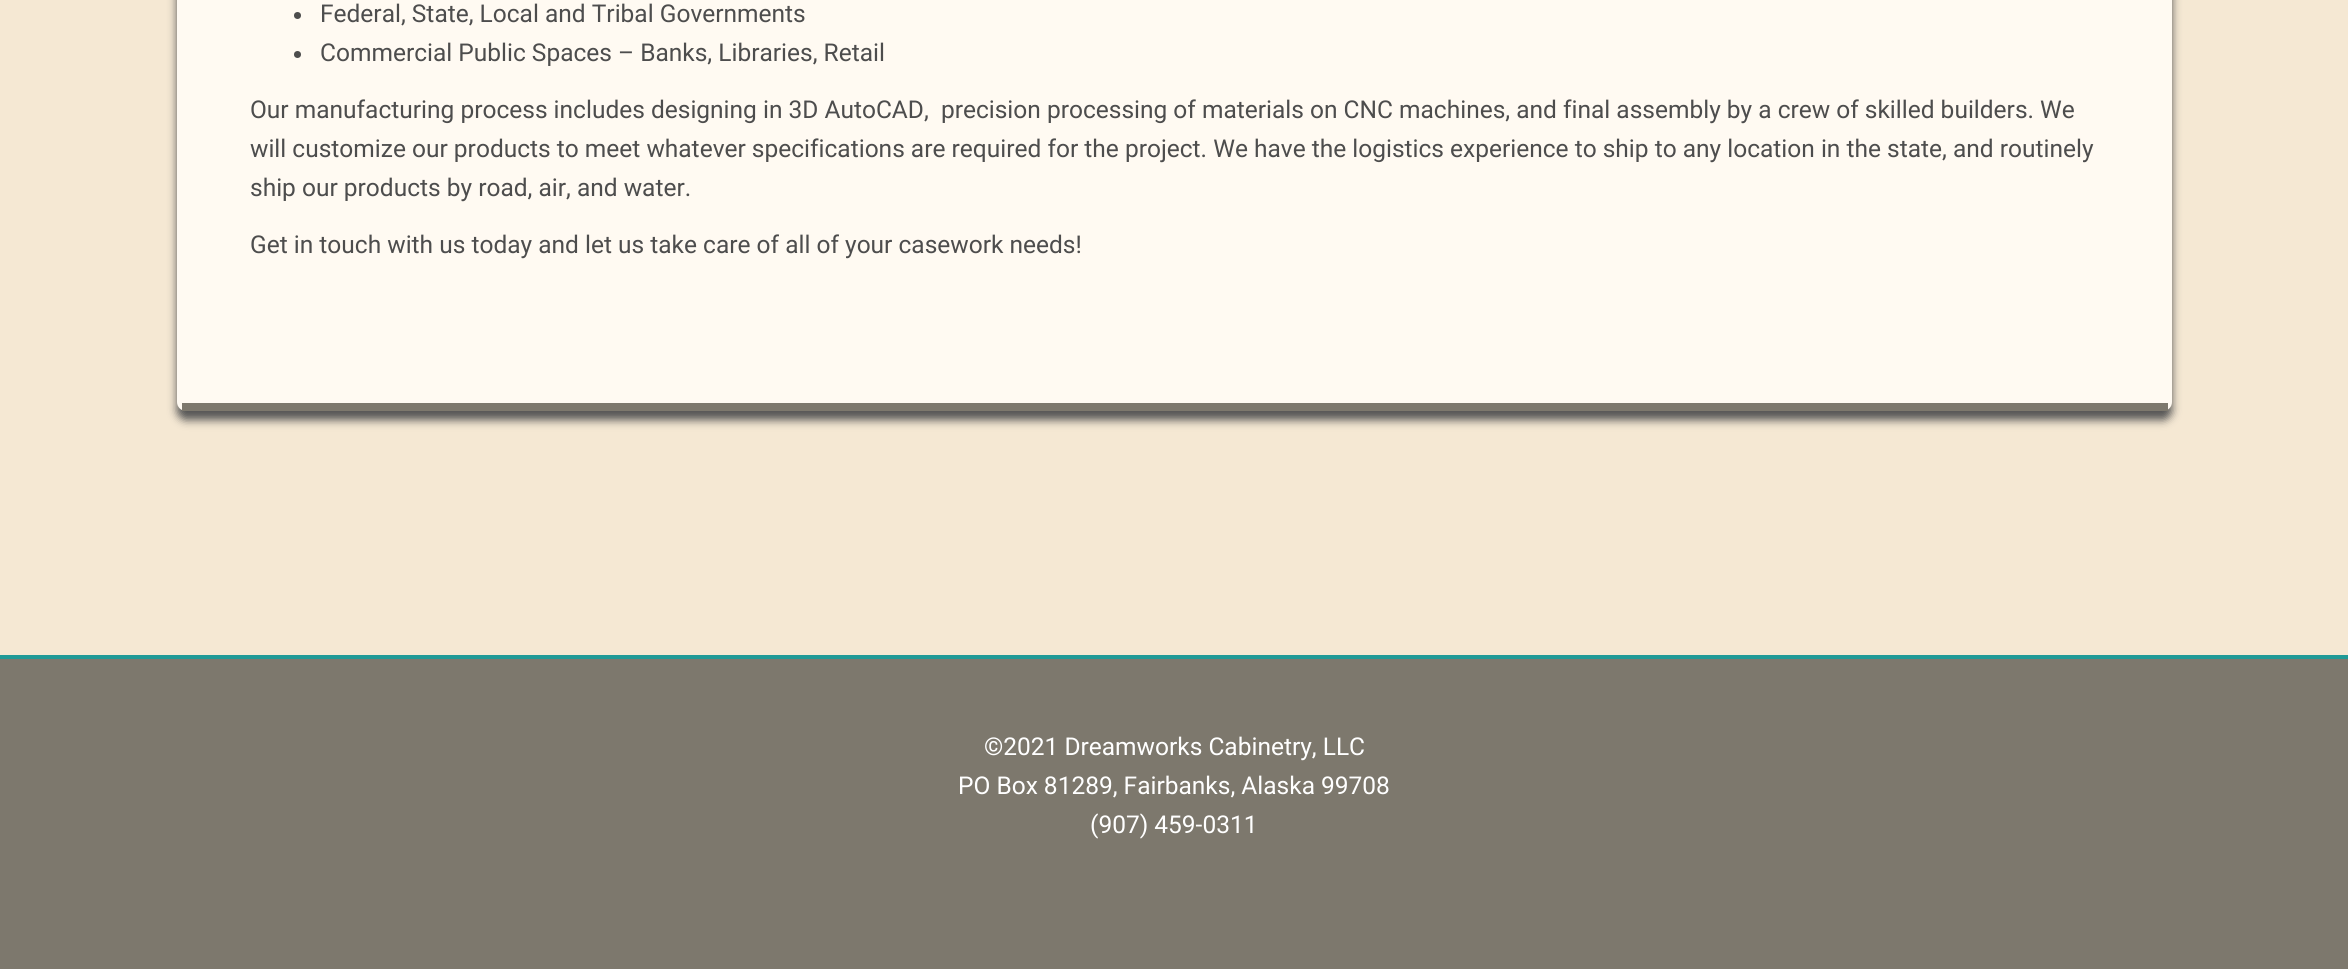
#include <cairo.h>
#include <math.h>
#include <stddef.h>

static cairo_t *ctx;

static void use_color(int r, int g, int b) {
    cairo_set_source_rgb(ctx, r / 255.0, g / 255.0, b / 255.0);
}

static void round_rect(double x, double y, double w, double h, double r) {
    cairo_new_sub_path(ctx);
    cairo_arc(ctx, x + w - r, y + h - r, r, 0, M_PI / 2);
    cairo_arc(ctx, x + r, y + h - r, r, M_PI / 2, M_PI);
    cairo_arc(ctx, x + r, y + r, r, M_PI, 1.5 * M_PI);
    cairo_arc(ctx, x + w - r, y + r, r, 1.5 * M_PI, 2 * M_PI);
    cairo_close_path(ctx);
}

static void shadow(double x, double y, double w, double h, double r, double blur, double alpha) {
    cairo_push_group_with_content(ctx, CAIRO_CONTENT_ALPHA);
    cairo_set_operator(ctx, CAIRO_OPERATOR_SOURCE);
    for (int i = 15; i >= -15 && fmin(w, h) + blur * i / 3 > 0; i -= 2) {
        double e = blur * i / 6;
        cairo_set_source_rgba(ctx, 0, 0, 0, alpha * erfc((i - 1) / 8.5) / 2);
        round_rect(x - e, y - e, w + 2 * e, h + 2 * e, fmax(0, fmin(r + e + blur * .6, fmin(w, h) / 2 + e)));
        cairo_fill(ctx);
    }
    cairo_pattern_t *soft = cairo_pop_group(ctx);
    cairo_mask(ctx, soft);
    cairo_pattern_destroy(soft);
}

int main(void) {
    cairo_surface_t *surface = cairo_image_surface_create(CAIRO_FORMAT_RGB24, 2348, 969);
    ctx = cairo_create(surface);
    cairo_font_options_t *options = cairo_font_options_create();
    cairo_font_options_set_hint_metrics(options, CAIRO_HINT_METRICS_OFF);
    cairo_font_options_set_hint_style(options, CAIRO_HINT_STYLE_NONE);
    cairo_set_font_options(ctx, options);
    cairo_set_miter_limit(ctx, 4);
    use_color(245, 232, 211);
    cairo_paint(ctx);
    use_color(85, 85, 85);
    shadow(177, -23, 1995, 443, 9, 4.5, 1);
    use_color(255, 250, 242);
    round_rect(177, -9, 1995, 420, 9);
    cairo_fill(ctx);
    use_color(125, 120, 109);
    cairo_rectangle(ctx, 182, 403, 1986, 8);
    cairo_fill(ctx);
    use_color(77, 77, 77);
    cairo_arc(ctx, 297.5, 15.5, 3.5, 0, 2 * M_PI);
    cairo_fill(ctx);
    cairo_select_font_face(ctx, "Roboto", CAIRO_FONT_SLANT_NORMAL, CAIRO_FONT_WEIGHT_NORMAL);
    cairo_set_font_size(ctx, 24.5);
    cairo_move_to(ctx, 320, 22);
    cairo_show_text(ctx, "Federal, State, Local and Tribal Governments");
    cairo_new_path(ctx);
    cairo_arc(ctx, 297.5, 54.5, 3.5, 0, 2 * M_PI);
    cairo_fill(ctx);
    cairo_move_to(ctx, 320, 61);
    cairo_show_text(ctx, "Commercial Public Spaces – Banks, Libraries, Retail");
    cairo_move_to(ctx, 250, 118);
    cairo_show_text(ctx, "Our manufacturing process includes designing in 3D AutoCAD,  precision processing of materials on CNC machines, and final assembly by a crew of skilled builders. We");
    cairo_move_to(ctx, 250, 157);
    cairo_show_text(ctx, "will customize our products to meet whatever specifications are required for the project. We have the logistics experience to ship to any location in the state, and routinely");
    cairo_move_to(ctx, 250, 196);
    cairo_show_text(ctx, "ship our products by road, air, and water.");
    cairo_move_to(ctx, 250, 253);
    cairo_show_text(ctx, "Get in touch with us today and let us take care of all of your casework needs!");
    use_color(125, 120, 109);
    cairo_rectangle(ctx, 0, 659, 2348, 310);
    cairo_fill(ctx);
    use_color(32, 154, 150);
    cairo_rectangle(ctx, 0, 655, 2348, 4);
    cairo_fill(ctx);
    use_color(255, 255, 255);
    cairo_move_to(ctx, 984, 755);
    cairo_show_text(ctx, "©2021 Dreamworks Cabinetry, LLC");
    cairo_move_to(ctx, 958, 794);
    cairo_show_text(ctx, "PO Box 81289, Fairbanks, Alaska 99708");
    cairo_move_to(ctx, 1090, 833);
    cairo_show_text(ctx, "(907) 459-0311");
    cairo_surface_write_to_png(surface, "result.png");
    cairo_font_options_destroy(options);
    cairo_destroy(ctx);
    cairo_surface_destroy(surface);
    return 0;
}
